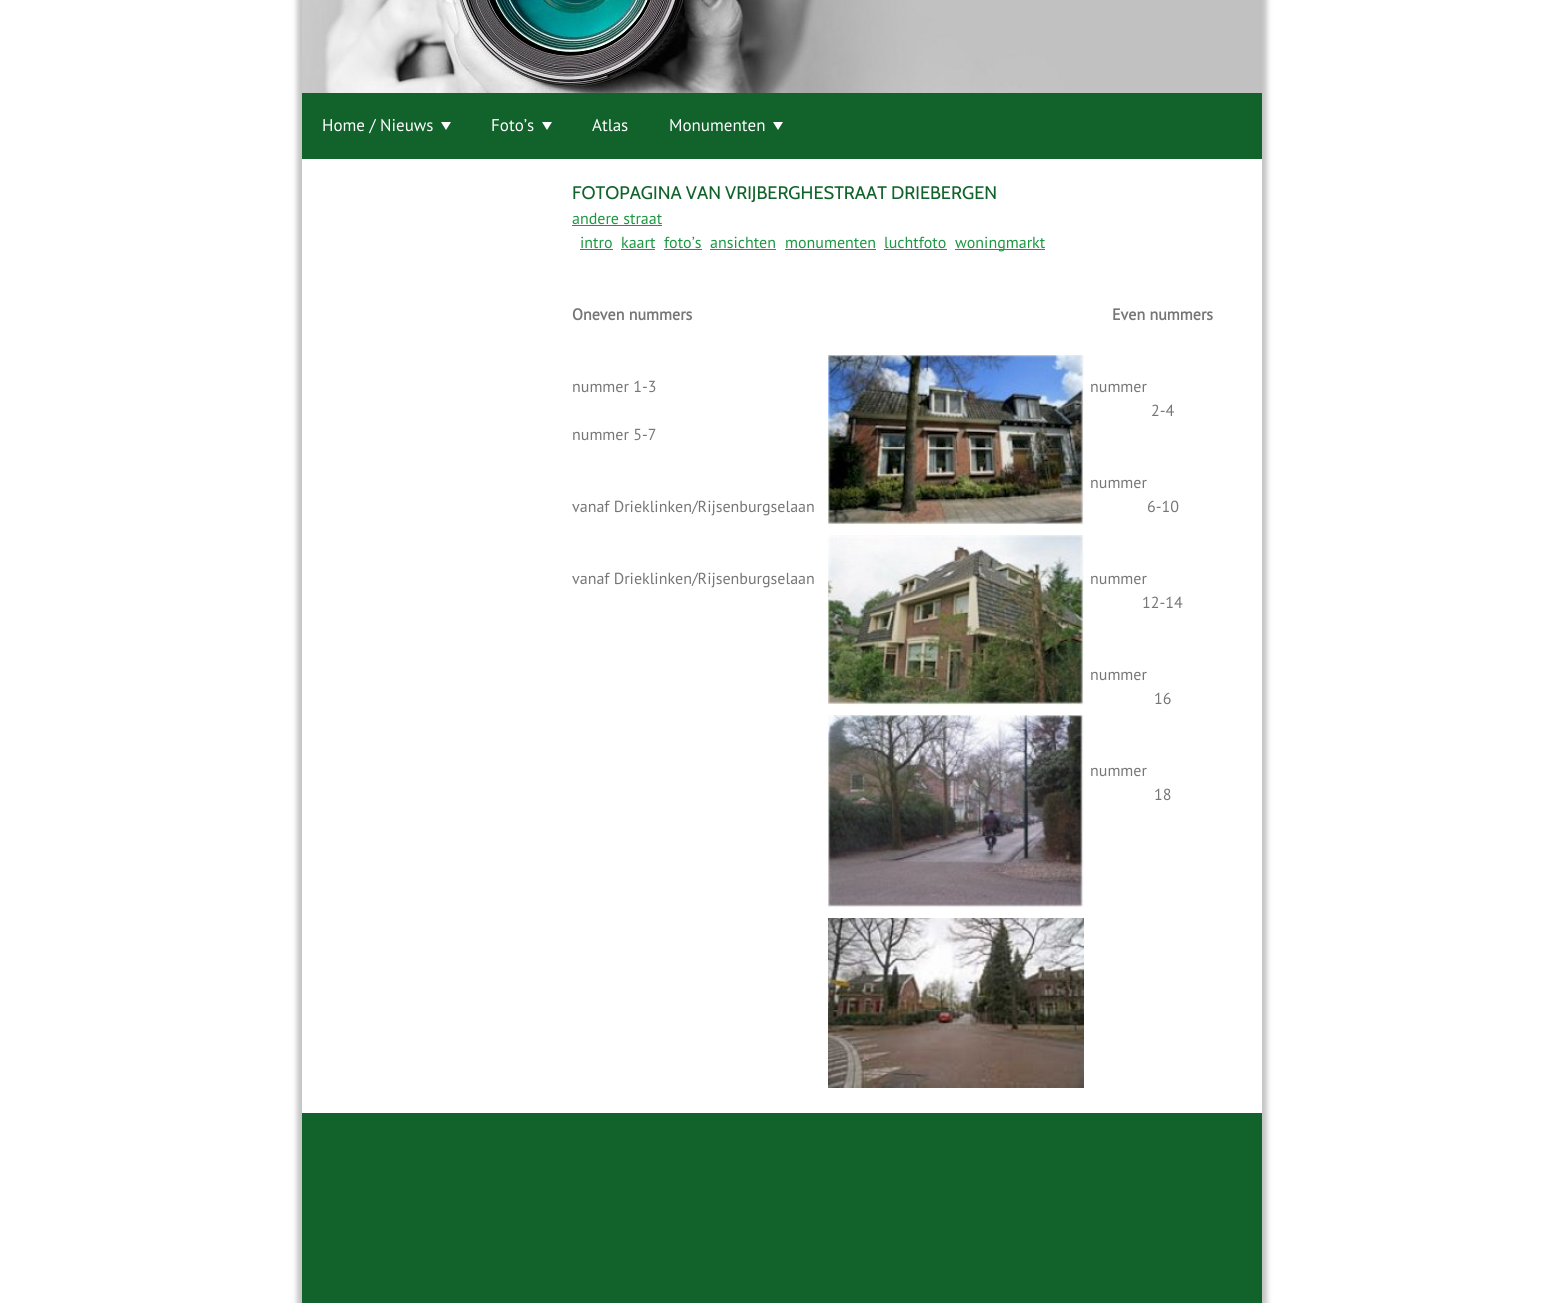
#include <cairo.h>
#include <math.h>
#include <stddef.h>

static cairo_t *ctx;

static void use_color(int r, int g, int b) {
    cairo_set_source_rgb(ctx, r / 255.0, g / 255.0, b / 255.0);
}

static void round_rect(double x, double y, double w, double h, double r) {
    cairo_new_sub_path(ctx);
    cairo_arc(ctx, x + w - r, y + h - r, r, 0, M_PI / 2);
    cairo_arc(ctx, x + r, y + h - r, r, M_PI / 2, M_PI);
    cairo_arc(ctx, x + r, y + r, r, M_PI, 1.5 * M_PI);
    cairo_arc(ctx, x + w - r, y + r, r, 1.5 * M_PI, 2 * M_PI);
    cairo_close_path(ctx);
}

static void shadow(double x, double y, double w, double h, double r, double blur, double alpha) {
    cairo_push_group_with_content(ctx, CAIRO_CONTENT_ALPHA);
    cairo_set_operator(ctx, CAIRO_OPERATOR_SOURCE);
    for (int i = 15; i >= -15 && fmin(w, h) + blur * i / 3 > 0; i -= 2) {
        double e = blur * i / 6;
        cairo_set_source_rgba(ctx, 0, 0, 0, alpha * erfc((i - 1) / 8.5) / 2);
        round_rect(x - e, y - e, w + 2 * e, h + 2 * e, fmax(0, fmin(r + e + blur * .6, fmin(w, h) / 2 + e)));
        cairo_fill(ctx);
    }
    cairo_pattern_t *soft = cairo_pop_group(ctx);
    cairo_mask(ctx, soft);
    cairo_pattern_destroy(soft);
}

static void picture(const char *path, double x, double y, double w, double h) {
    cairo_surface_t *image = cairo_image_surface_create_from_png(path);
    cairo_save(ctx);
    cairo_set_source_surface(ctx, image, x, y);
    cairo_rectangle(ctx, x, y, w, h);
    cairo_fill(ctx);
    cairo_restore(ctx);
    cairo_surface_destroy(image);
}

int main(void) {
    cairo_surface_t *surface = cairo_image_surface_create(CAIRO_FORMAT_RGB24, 1563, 1303);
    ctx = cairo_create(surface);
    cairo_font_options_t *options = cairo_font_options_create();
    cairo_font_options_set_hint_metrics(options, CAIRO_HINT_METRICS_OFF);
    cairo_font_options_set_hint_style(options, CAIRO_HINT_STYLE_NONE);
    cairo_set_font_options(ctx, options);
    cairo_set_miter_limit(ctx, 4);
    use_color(255, 255, 255);
    cairo_paint(ctx);
    cairo_save(ctx);
    cairo_set_fill_rule(ctx, CAIRO_FILL_RULE_EVEN_ODD);
    cairo_new_path(ctx);
    cairo_move_to(ctx, 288, 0);
    cairo_line_to(ctx, 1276, 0);
    cairo_line_to(ctx, 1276, 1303);
    cairo_line_to(ctx, 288, 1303);
    cairo_close_path(ctx);
    cairo_move_to(ctx, 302, -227);
    cairo_line_to(ctx, 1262, -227);
    cairo_line_to(ctx, 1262, 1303);
    cairo_line_to(ctx, 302, 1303);
    cairo_close_path(ctx);
    cairo_clip(ctx);
    use_color(195, 195, 195);
    shadow(297, -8, 970, 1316, 0, 2.5, 1);
    cairo_restore(ctx);
    picture("img1.png", 302, 0, 960, 93);
    use_color(17, 99, 43);
    cairo_rectangle(ctx, 302, 93, 960, 66);
    cairo_fill(ctx);
    cairo_select_font_face(ctx, "PT Sans", CAIRO_FONT_SLANT_NORMAL, CAIRO_FONT_WEIGHT_NORMAL);
    cairo_set_font_size(ctx, 17);
    use_color(255, 255, 255);
    cairo_move_to(ctx, 322, 131);
    cairo_show_text(ctx, "Home / Nieuws");
    cairo_new_path(ctx);
    cairo_move_to(ctx, 441, 122);
    cairo_line_to(ctx, 451, 122);
    cairo_line_to(ctx, 446, 130);
    cairo_close_path(ctx);
    cairo_fill(ctx);
    cairo_move_to(ctx, 491, 131);
    cairo_show_text(ctx, "Foto’s");
    cairo_new_path(ctx);
    cairo_move_to(ctx, 542, 122);
    cairo_line_to(ctx, 552, 122);
    cairo_line_to(ctx, 547, 130);
    cairo_close_path(ctx);
    cairo_fill(ctx);
    cairo_move_to(ctx, 592, 131);
    cairo_show_text(ctx, "Atlas");
    cairo_move_to(ctx, 669, 131);
    cairo_show_text(ctx, "Monumenten");
    cairo_new_path(ctx);
    cairo_move_to(ctx, 773, 122);
    cairo_line_to(ctx, 783, 122);
    cairo_line_to(ctx, 778, 130);
    cairo_close_path(ctx);
    cairo_fill(ctx);
    cairo_select_font_face(ctx, "Cabin", CAIRO_FONT_SLANT_NORMAL, CAIRO_FONT_WEIGHT_NORMAL);
    cairo_set_font_size(ctx, 18.2);
    use_color(17, 99, 43);
    cairo_move_to(ctx, 572, 199);
    cairo_show_text(ctx, "FOTOPAGINA VAN VRIJBERGHESTRAAT DRIEBERGEN");
    cairo_select_font_face(ctx, "PT Sans", CAIRO_FONT_SLANT_NORMAL, CAIRO_FONT_WEIGHT_NORMAL);
    cairo_set_font_size(ctx, 16);
    use_color(28, 151, 66);
    cairo_move_to(ctx, 572, 224);
    cairo_show_text(ctx, "andere straat");
    cairo_rectangle(ctx, 572, 225, 90, 1);
    cairo_fill(ctx);
    cairo_move_to(ctx, 580, 248);
    cairo_show_text(ctx, "intro");
    cairo_rectangle(ctx, 580, 249, 33, 1);
    cairo_fill(ctx);
    cairo_move_to(ctx, 621, 248);
    cairo_show_text(ctx, "kaart");
    cairo_rectangle(ctx, 621, 249, 34, 1);
    cairo_fill(ctx);
    cairo_move_to(ctx, 664, 248);
    cairo_show_text(ctx, "foto’s");
    cairo_rectangle(ctx, 664, 249, 38, 1);
    cairo_fill(ctx);
    cairo_move_to(ctx, 710, 248);
    cairo_show_text(ctx, "ansichten");
    cairo_rectangle(ctx, 710, 249, 66, 1);
    cairo_fill(ctx);
    cairo_move_to(ctx, 785, 248);
    cairo_show_text(ctx, "monumenten");
    cairo_rectangle(ctx, 785, 249, 91, 1);
    cairo_fill(ctx);
    cairo_move_to(ctx, 884, 248);
    cairo_show_text(ctx, "luchtfoto");
    cairo_rectangle(ctx, 884, 249, 63, 1);
    cairo_fill(ctx);
    cairo_rectangle(ctx, 955, 249, 90, 1);
    cairo_fill(ctx);
    cairo_move_to(ctx, 955, 248);
    cairo_show_text(ctx, "woningmarkt");
    cairo_select_font_face(ctx, "PT Sans", CAIRO_FONT_SLANT_NORMAL, CAIRO_FONT_WEIGHT_BOLD);
    use_color(118, 118, 118);
    cairo_move_to(ctx, 572, 320);
    cairo_show_text(ctx, "Oneven nummers");
    cairo_select_font_face(ctx, "PT Sans", CAIRO_FONT_SLANT_NORMAL, CAIRO_FONT_WEIGHT_NORMAL);
    cairo_move_to(ctx, 572, 392);
    cairo_show_text(ctx, "nummer 1-3");
    picture("img2.png", 828, 355, 256, 170);
    cairo_move_to(ctx, 572, 440);
    cairo_show_text(ctx, "nummer 5-7");
    cairo_move_to(ctx, 572, 512);
    cairo_show_text(ctx, "vanaf Drieklinken/Rijsenburgselaan");
    cairo_move_to(ctx, 572, 584);
    cairo_show_text(ctx, "vanaf Drieklinken/Rijsenburgselaan");
    picture("img3.png", 828, 535, 256, 170);
    picture("img4.png", 828, 715, 256, 193);
    picture("img5.png", 828, 918, 256, 170);
    cairo_select_font_face(ctx, "PT Sans", CAIRO_FONT_SLANT_NORMAL, CAIRO_FONT_WEIGHT_BOLD);
    cairo_move_to(ctx, 1112, 320);
    cairo_show_text(ctx, "Even nummers");
    cairo_select_font_face(ctx, "PT Sans", CAIRO_FONT_SLANT_NORMAL, CAIRO_FONT_WEIGHT_NORMAL);
    cairo_move_to(ctx, 1090, 392);
    cairo_show_text(ctx, "nummer");
    cairo_move_to(ctx, 1151, 416);
    cairo_show_text(ctx, "2-4");
    cairo_move_to(ctx, 1090, 488);
    cairo_show_text(ctx, "nummer");
    cairo_move_to(ctx, 1147, 512);
    cairo_show_text(ctx, "6-10");
    cairo_move_to(ctx, 1090, 584);
    cairo_show_text(ctx, "nummer");
    cairo_move_to(ctx, 1142, 608);
    cairo_show_text(ctx, "12-14");
    cairo_move_to(ctx, 1090, 680);
    cairo_show_text(ctx, "nummer");
    cairo_move_to(ctx, 1154, 704);
    cairo_show_text(ctx, "16");
    cairo_move_to(ctx, 1090, 776);
    cairo_show_text(ctx, "nummer");
    cairo_move_to(ctx, 1154, 800);
    cairo_show_text(ctx, "18");
    use_color(17, 99, 43);
    cairo_rectangle(ctx, 302, 1113, 960, 190);
    cairo_fill(ctx);
    cairo_surface_write_to_png(surface, "result.png");
    cairo_font_options_destroy(options);
    cairo_destroy(ctx);
    cairo_surface_destroy(surface);
    return 0;
}
